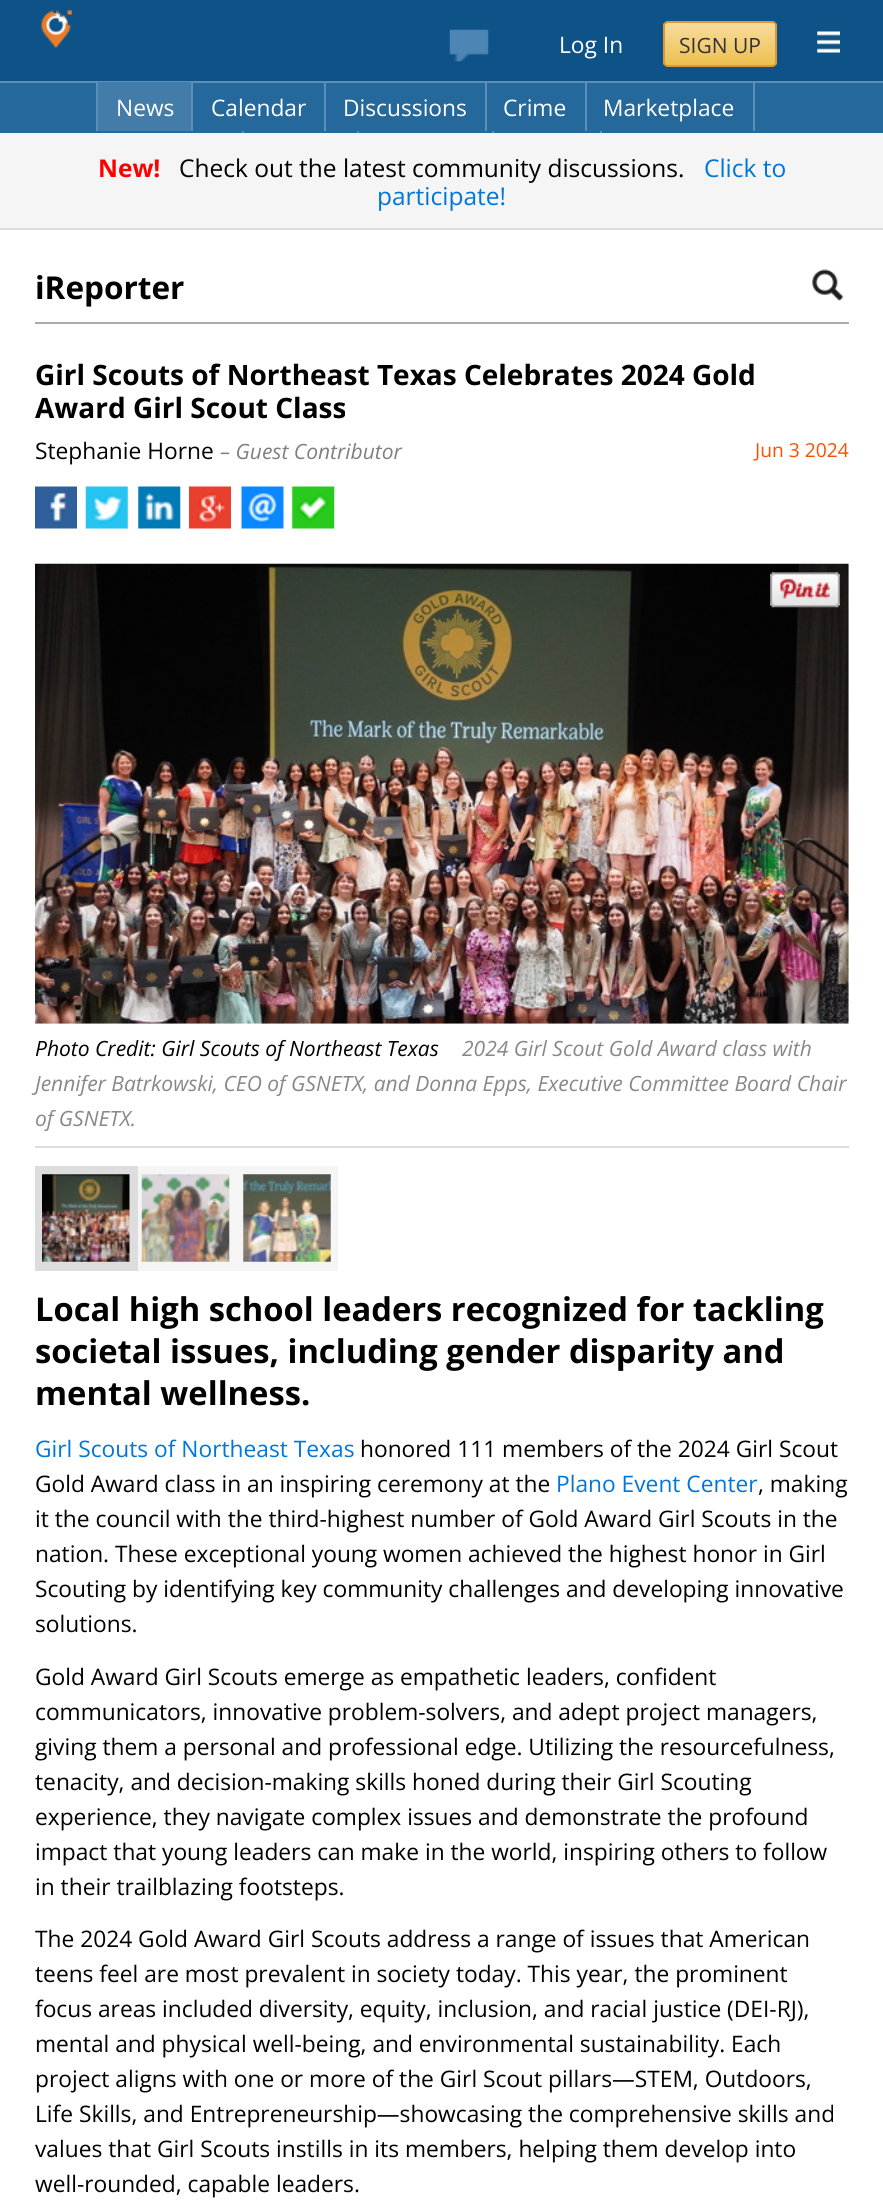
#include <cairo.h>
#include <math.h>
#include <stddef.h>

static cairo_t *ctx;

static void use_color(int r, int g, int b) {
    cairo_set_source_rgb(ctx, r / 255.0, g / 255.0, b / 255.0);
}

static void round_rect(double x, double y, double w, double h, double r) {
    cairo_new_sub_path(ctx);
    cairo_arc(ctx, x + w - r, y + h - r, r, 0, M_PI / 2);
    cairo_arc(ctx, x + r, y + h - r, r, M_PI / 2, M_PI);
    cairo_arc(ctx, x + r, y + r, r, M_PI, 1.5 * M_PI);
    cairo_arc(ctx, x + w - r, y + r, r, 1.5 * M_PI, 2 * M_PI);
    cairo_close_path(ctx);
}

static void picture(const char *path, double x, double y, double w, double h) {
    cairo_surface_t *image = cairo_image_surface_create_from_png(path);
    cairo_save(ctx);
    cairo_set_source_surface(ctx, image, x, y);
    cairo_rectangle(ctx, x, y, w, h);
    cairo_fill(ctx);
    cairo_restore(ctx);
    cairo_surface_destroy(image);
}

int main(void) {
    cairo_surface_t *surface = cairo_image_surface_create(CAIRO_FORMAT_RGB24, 883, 2203);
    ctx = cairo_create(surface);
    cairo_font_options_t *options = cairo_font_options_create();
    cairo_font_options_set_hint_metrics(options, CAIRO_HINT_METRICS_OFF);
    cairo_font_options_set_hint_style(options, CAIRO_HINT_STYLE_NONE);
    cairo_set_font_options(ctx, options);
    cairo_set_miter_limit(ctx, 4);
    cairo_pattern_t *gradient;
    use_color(255, 255, 255);
    cairo_paint(ctx);
    use_color(14, 83, 136);
    cairo_rectangle(ctx, 0, 0, 883, 81);
    cairo_fill(ctx);
    picture("img1.png", 41, 9, 31, 39);
    picture("img2.png", 449, 29, 40, 33);
    cairo_select_font_face(ctx, "Open Sans", CAIRO_FONT_SLANT_NORMAL, CAIRO_FONT_WEIGHT_NORMAL);
    cairo_set_font_size(ctx, 22.75);
    use_color(255, 255, 255);
    cairo_move_to(ctx, 559, 53);
    cairo_show_text(ctx, "Log In");
    cairo_save(ctx);
    round_rect(663, 21, 114, 46, 5);
    cairo_clip(ctx);
    gradient = cairo_pattern_create_linear(720, 23, 720, 65);
    cairo_pattern_add_color_stop_rgba(gradient, 0, 0.969, 0.867, 0.62, 1);
    cairo_pattern_add_color_stop_rgba(gradient, 1, 0.929, 0.749, 0.31, 1);
    cairo_set_source(ctx, gradient);
    cairo_pattern_destroy(gradient);
    cairo_rectangle(ctx, 663, 23, 114, 42);
    cairo_fill(ctx);
    cairo_restore(ctx);
    round_rect(664, 22, 112, 44, 4);
    use_color(223, 149, 56);
    cairo_stroke(ctx);
    cairo_set_font_size(ctx, 21);
    use_color(51, 51, 51);
    cairo_move_to(ctx, 679, 53);
    cairo_show_text(ctx, "SIGN UP");
    picture("img3.png", 817, 31, 23, 22);
    use_color(37, 105, 156);
    cairo_rectangle(ctx, 0, 83, 883, 50);
    cairo_fill(ctx);
    use_color(91, 142, 186);
    cairo_rectangle(ctx, 0, 81, 883, 2);
    cairo_fill(ctx);
    use_color(67, 124, 168);
    cairo_rectangle(ctx, 98, 82, 93, 49);
    cairo_fill(ctx);
    use_color(91, 142, 186);
    cairo_rectangle(ctx, 191, 82, 2, 49);
    cairo_fill(ctx);
    cairo_rectangle(ctx, 96, 82, 2, 49);
    cairo_fill(ctx);
    cairo_set_font_size(ctx, 22.75);
    use_color(255, 255, 255);
    cairo_move_to(ctx, 116, 116);
    cairo_show_text(ctx, "News");
    use_color(91, 142, 186);
    cairo_rectangle(ctx, 324, 82, 2, 49);
    cairo_fill(ctx);
    use_color(255, 255, 255);
    cairo_move_to(ctx, 211, 116);
    cairo_show_text(ctx, "Calendar");
    use_color(91, 142, 186);
    cairo_rectangle(ctx, 485, 82, 2, 49);
    cairo_fill(ctx);
    use_color(255, 255, 255);
    cairo_move_to(ctx, 343, 116);
    cairo_show_text(ctx, "Discussions");
    use_color(91, 142, 186);
    cairo_rectangle(ctx, 585, 82, 2, 49);
    cairo_fill(ctx);
    use_color(255, 255, 255);
    cairo_move_to(ctx, 503, 116);
    cairo_show_text(ctx, "Crime");
    use_color(91, 142, 186);
    cairo_rectangle(ctx, 753, 82, 2, 49);
    cairo_fill(ctx);
    use_color(255, 255, 255);
    cairo_move_to(ctx, 603, 116);
    cairo_show_text(ctx, "Marketplace");
    use_color(91, 142, 186);
    cairo_rectangle(ctx, 242, 131, 2, 2);
    cairo_fill(ctx);
    cairo_rectangle(ctx, 357, 131, 2, 2);
    cairo_fill(ctx);
    cairo_rectangle(ctx, 492, 131, 2, 2);
    cairo_fill(ctx);
    cairo_rectangle(ctx, 600, 131, 2, 2);
    cairo_fill(ctx);
    use_color(245, 245, 245);
    cairo_rectangle(ctx, 0, 133, 883, 95);
    cairo_fill(ctx);
    use_color(221, 221, 221);
    cairo_rectangle(ctx, 0, 228, 883, 2);
    cairo_fill(ctx);
    cairo_select_font_face(ctx, "Open Sans", CAIRO_FONT_SLANT_NORMAL, CAIRO_FONT_WEIGHT_BOLD);
    cairo_set_font_size(ctx, 24.5);
    use_color(255, 0, 0);
    cairo_move_to(ctx, 98, 177);
    cairo_show_text(ctx, "New!");
    cairo_select_font_face(ctx, "Open Sans", CAIRO_FONT_SLANT_NORMAL, CAIRO_FONT_WEIGHT_NORMAL);
    use_color(0, 0, 0);
    cairo_move_to(ctx, 179, 177);
    cairo_show_text(ctx, "Check out the latest community discussions.");
    use_color(1, 118, 217);
    cairo_move_to(ctx, 704, 177);
    cairo_show_text(ctx, "Click to");
    cairo_move_to(ctx, 377, 205);
    cairo_show_text(ctx, "participate!");
    use_color(170, 170, 170);
    cairo_rectangle(ctx, 35, 322, 814, 2);
    cairo_fill(ctx);
    cairo_select_font_face(ctx, "Open Sans", CAIRO_FONT_SLANT_NORMAL, CAIRO_FONT_WEIGHT_BOLD);
    cairo_set_font_size(ctx, 31.5);
    use_color(0, 0, 0);
    cairo_move_to(ctx, 35, 299);
    cairo_show_text(ctx, "iReporter");
    picture("img4.png", 812, 269, 32, 32);
    cairo_set_font_size(ctx, 28);
    cairo_move_to(ctx, 35, 385);
    cairo_show_text(ctx, "Girl Scouts of Northeast Texas Celebrates 2024 Gold");
    cairo_move_to(ctx, 35, 418);
    cairo_show_text(ctx, "Award Girl Scout Class");
    cairo_select_font_face(ctx, "Open Sans", CAIRO_FONT_SLANT_NORMAL, CAIRO_FONT_WEIGHT_NORMAL);
    cairo_set_font_size(ctx, 22.75);
    cairo_move_to(ctx, 35, 459);
    cairo_show_text(ctx, "Stephanie Horne");
    cairo_select_font_face(ctx, "Open Sans", CAIRO_FONT_SLANT_ITALIC, CAIRO_FONT_WEIGHT_NORMAL);
    cairo_set_font_size(ctx, 21);
    use_color(128, 128, 128);
    cairo_move_to(ctx, 220, 459);
    cairo_show_text(ctx, "– Guest Contributor");
    cairo_select_font_face(ctx, "Open Sans", CAIRO_FONT_SLANT_NORMAL, CAIRO_FONT_WEIGHT_NORMAL);
    cairo_set_font_size(ctx, 19.25);
    use_color(248, 80, 0);
    cairo_move_to(ctx, 755, 457);
    cairo_show_text(ctx, "Jun 3 2024");
    picture("img5.png", 35, 486, 42, 43);
    picture("img6.png", 85, 486, 43, 43);
    picture("img7.png", 138, 486, 43, 43);
    picture("img8.png", 189, 486, 42, 43);
    picture("img9.png", 241, 486, 43, 43);
    picture("img10.png", 292, 486, 43, 43);
    picture("img11.png", 35, 563, 814, 461);
    picture("img12.png", 770, 572, 70, 36);
    cairo_select_font_face(ctx, "Open Sans", CAIRO_FONT_SLANT_ITALIC, CAIRO_FONT_WEIGHT_NORMAL);
    cairo_set_font_size(ctx, 21);
    use_color(0, 0, 0);
    cairo_move_to(ctx, 35, 1056);
    cairo_show_text(ctx, "Photo Credit: Girl Scouts of Northeast Texas");
    use_color(136, 136, 136);
    cairo_move_to(ctx, 462, 1056);
    cairo_show_text(ctx, "2024 Girl Scout Gold Award class with");
    cairo_move_to(ctx, 35, 1091);
    cairo_show_text(ctx, "Jennifer Batrkowski, CEO of GSNETX, and Donna Epps, Executive Committee Board Chair");
    cairo_move_to(ctx, 35, 1126);
    cairo_show_text(ctx, "of GSNETX.");
    use_color(221, 221, 221);
    cairo_rectangle(ctx, 35, 1146, 814, 2);
    cairo_fill(ctx);
    use_color(245, 245, 245);
    cairo_rectangle(ctx, 138, 1166, 200, 105);
    cairo_fill(ctx);
    use_color(221, 221, 221);
    cairo_rectangle(ctx, 35, 1166, 103, 105);
    cairo_fill(ctx);
    picture("img13.png", 42, 1174, 88, 88);
    picture("img14.png", 141, 1174, 89, 88);
    picture("img15.png", 243, 1174, 88, 88);
    cairo_select_font_face(ctx, "Open Sans", CAIRO_FONT_SLANT_NORMAL, CAIRO_FONT_WEIGHT_BOLD);
    cairo_set_font_size(ctx, 32.7);
    use_color(0, 0, 0);
    cairo_move_to(ctx, 35, 1321);
    cairo_show_text(ctx, "Local high school leaders recognized for tackling");
    cairo_move_to(ctx, 35, 1363);
    cairo_show_text(ctx, "societal issues, including gender disparity and");
    cairo_move_to(ctx, 35, 1405);
    cairo_show_text(ctx, "mental wellness.");
    cairo_select_font_face(ctx, "Open Sans", CAIRO_FONT_SLANT_NORMAL, CAIRO_FONT_WEIGHT_NORMAL);
    cairo_set_font_size(ctx, 22.75);
    use_color(1, 118, 217);
    cairo_move_to(ctx, 35, 1457);
    cairo_show_text(ctx, "Girl Scouts of Northeast Texas");
    use_color(0, 0, 0);
    cairo_move_to(ctx, 360, 1457);
    cairo_show_text(ctx, "honored 111 members of the 2024 Girl Scout");
    cairo_move_to(ctx, 35, 1492);
    cairo_show_text(ctx, "Gold Award class in an inspiring ceremony at the");
    use_color(1, 118, 217);
    cairo_move_to(ctx, 556, 1492);
    cairo_show_text(ctx, "Plano Event Center");
    use_color(0, 0, 0);
    cairo_move_to(ctx, 758, 1492);
    cairo_show_text(ctx, ", making");
    cairo_move_to(ctx, 35, 1527);
    cairo_show_text(ctx, "it the council with the third-highest number of Gold Award Girl Scouts in the");
    cairo_move_to(ctx, 35, 1562);
    cairo_show_text(ctx, "nation. These exceptional young women achieved the highest honor in Girl");
    cairo_move_to(ctx, 35, 1597);
    cairo_show_text(ctx, "Scouting by identifying key community challenges and developing innovative");
    cairo_move_to(ctx, 35, 1632);
    cairo_show_text(ctx, "solutions.");
    cairo_move_to(ctx, 35, 1685);
    cairo_show_text(ctx, "Gold Award Girl Scouts emerge as empathetic leaders, confident");
    cairo_move_to(ctx, 35, 1720);
    cairo_show_text(ctx, "communicators, innovative problem-solvers, and adept project managers,");
    cairo_move_to(ctx, 35, 1755);
    cairo_show_text(ctx, "giving them a personal and professional edge. Utilizing the resourcefulness,");
    cairo_move_to(ctx, 35, 1790);
    cairo_show_text(ctx, "tenacity, and decision-making skills honed during their Girl Scouting");
    cairo_move_to(ctx, 35, 1825);
    cairo_show_text(ctx, "experience, they navigate complex issues and demonstrate the profound");
    cairo_move_to(ctx, 35, 1860);
    cairo_show_text(ctx, "impact that young leaders can make in the world, inspiring others to follow");
    cairo_move_to(ctx, 35, 1895);
    cairo_show_text(ctx, "in their trailblazing footsteps.");
    cairo_move_to(ctx, 35, 1947);
    cairo_show_text(ctx, "The 2024 Gold Award Girl Scouts address a range of issues that American");
    cairo_move_to(ctx, 35, 1982);
    cairo_show_text(ctx, "teens feel are most prevalent in society today. This year, the prominent");
    cairo_move_to(ctx, 35, 2017);
    cairo_show_text(ctx, "focus areas included diversity, equity, inclusion, and racial justice (DEI-RJ),");
    cairo_move_to(ctx, 35, 2052);
    cairo_show_text(ctx, "mental and physical well-being, and environmental sustainability. Each");
    cairo_move_to(ctx, 35, 2087);
    cairo_show_text(ctx, "project aligns with one or more of the Girl Scout pillars—STEM, Outdoors,");
    cairo_move_to(ctx, 35, 2122);
    cairo_show_text(ctx, "Life Skills, and Entrepreneurship—showcasing the comprehensive skills and");
    cairo_move_to(ctx, 35, 2157);
    cairo_show_text(ctx, "values that Girl Scouts instills in its members, helping them develop into");
    cairo_move_to(ctx, 35, 2192);
    cairo_show_text(ctx, "well-rounded, capable leaders.");
    cairo_surface_write_to_png(surface, "result.png");
    cairo_font_options_destroy(options);
    cairo_destroy(ctx);
    cairo_surface_destroy(surface);
    return 0;
}
